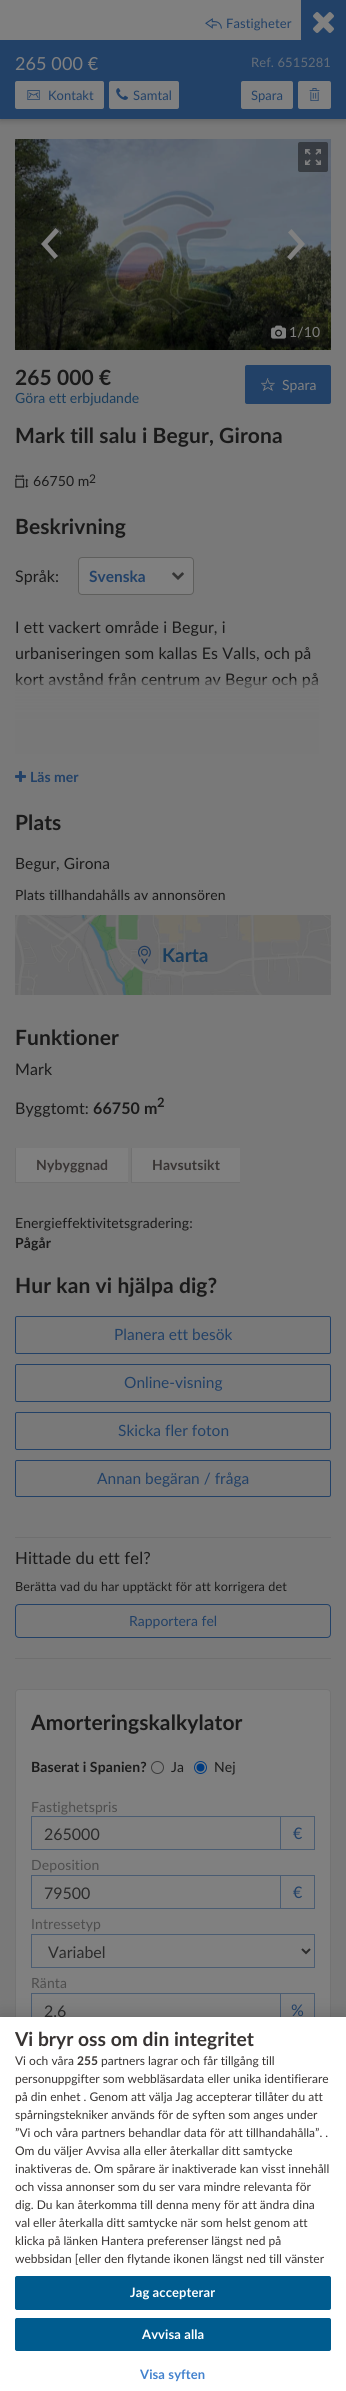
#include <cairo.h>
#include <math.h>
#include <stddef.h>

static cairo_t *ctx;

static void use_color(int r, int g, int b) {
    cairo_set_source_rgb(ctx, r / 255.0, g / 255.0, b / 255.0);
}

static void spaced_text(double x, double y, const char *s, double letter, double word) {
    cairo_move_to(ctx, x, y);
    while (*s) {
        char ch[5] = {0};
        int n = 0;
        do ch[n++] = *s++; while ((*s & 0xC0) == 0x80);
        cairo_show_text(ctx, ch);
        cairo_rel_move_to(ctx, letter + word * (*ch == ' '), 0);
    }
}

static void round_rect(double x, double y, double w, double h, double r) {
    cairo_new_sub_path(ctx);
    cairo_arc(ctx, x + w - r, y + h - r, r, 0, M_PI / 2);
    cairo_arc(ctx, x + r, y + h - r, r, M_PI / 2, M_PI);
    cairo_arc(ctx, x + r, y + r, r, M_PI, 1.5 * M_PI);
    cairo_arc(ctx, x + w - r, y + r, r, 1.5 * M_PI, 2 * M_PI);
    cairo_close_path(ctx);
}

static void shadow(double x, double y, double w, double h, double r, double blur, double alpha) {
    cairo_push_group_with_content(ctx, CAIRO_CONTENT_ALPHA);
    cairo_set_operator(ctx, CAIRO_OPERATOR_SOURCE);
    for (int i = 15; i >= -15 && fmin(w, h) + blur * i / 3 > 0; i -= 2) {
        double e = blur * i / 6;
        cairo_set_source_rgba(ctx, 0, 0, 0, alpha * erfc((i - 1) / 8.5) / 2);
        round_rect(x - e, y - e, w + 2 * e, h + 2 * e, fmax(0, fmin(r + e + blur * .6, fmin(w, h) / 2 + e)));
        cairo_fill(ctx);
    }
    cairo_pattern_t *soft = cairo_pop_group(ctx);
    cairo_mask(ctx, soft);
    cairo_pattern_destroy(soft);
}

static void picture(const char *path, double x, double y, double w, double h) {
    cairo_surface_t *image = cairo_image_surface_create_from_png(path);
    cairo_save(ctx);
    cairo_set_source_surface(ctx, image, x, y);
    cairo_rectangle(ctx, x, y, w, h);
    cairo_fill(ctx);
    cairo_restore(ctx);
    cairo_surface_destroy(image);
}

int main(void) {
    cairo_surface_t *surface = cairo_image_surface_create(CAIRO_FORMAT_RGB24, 346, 2391);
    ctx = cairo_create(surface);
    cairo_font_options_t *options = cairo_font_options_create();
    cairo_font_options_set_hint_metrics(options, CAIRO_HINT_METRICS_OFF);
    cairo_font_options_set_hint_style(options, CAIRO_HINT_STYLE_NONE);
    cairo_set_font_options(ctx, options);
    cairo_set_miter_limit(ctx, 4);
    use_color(121, 121, 121);
    cairo_paint(ctx);
    use_color(109, 109, 109);
    cairo_rectangle(ctx, 15, 915, 316, 80);
    cairo_fill(ctx);
    use_color(0, 0, 0);
    shadow(0, 0, 346, 119, 0, 4, 0.3);
    use_color(34, 65, 103);
    cairo_rectangle(ctx, 301, 0, 45, 40);
    cairo_fill(ctx);
    picture("img1.png", 313, 12, 21, 21);
    use_color(128, 128, 128);
    cairo_rectangle(ctx, 0, 0, 301, 40);
    cairo_fill(ctx);
    picture("img2.png", 205, 18, 17, 11);
    cairo_select_font_face(ctx, "Lato", CAIRO_FONT_SLANT_NORMAL, CAIRO_FONT_WEIGHT_NORMAL);
    cairo_set_font_size(ctx, 13);
    use_color(34, 65, 103);
    spaced_text(226, 28, "Fastigheter", 0.1, 0);
    cairo_rectangle(ctx, 0, 40, 346, 79);
    cairo_fill(ctx);
    cairo_set_font_size(ctx, 18);
    use_color(128, 128, 128);
    spaced_text(15, 70, "265 000 €", 0.1, 0);
    cairo_set_font_size(ctx, 13);
    use_color(100, 109, 120);
    spaced_text(251, 67, "Ref. 6515281", 0.1, 0);
    use_color(128, 128, 128);
    round_rect(15, 81, 89, 28, 2);
    cairo_fill(ctx);
    picture("img3.png", 27, 90, 13, 10);
    use_color(34, 65, 103);
    cairo_move_to(ctx, 48, 100);
    cairo_show_text(ctx, "Kontakt");
    use_color(128, 128, 128);
    round_rect(109, 81, 70, 28, 2);
    cairo_fill(ctx);
    picture("img4.png", 116, 88, 12, 12);
    use_color(34, 65, 103);
    spaced_text(133, 100, "Samtal", 0.1, 0);
    use_color(128, 128, 128);
    round_rect(241, 81, 52, 28, 2);
    cairo_fill(ctx);
    use_color(34, 65, 103);
    cairo_move_to(ctx, 251, 100);
    cairo_show_text(ctx, "Spara");
    use_color(128, 128, 128);
    round_rect(298, 81, 33, 28, 2);
    cairo_fill(ctx);
    picture("img5.png", 309, 88, 11, 13);
    picture("img6.png", 15, 139, 316, 211);
    cairo_set_source_rgba(ctx, 0.067, 0.067, 0.067, 0.5);
    round_rect(298, 142, 30, 30, 2);
    cairo_fill(ctx);
    picture("img7.png", 305, 149, 16, 16);
    use_color(128, 128, 128);
    cairo_new_path(ctx);
    cairo_move_to(ctx, 54.5, 259);
    cairo_line_to(ctx, 41, 244);
    cairo_line_to(ctx, 55.5, 228);
    cairo_line_to(ctx, 59, 231.5);
    cairo_line_to(ctx, 47.5, 244);
    cairo_line_to(ctx, 58, 256);
    cairo_close_path(ctx);
    cairo_fill(ctx);
    cairo_new_path(ctx);
    cairo_move_to(ctx, 291.5, 229);
    cairo_line_to(ctx, 305, 244);
    cairo_line_to(ctx, 290.5, 260);
    cairo_line_to(ctx, 287, 257);
    cairo_line_to(ctx, 298.5, 244);
    cairo_line_to(ctx, 288, 232.5);
    cairo_close_path(ctx);
    cairo_fill(ctx);
    cairo_set_source_rgba(ctx, 0.067, 0.067, 0.067, 0.5);
    cairo_rectangle(ctx, 263, 317, 65, 30);
    cairo_fill(ctx);
    picture("img8.png", 271, 325, 15, 14);
    cairo_set_font_size(ctx, 14);
    use_color(128, 128, 128);
    spaced_text(289, 337, "1/10", 0.1, 0);
    cairo_select_font_face(ctx, "Lato", CAIRO_FONT_SLANT_NORMAL, CAIRO_FONT_WEIGHT_BOLD);
    cairo_set_font_size(ctx, 21);
    use_color(26, 26, 26);
    spaced_text(15, 385, "265 000 €", 0.1, 0);
    use_color(34, 65, 103);
    round_rect(245, 365, 86, 39, 2);
    cairo_fill(ctx);
    picture("img9.png", 261, 378, 14, 13);
    cairo_select_font_face(ctx, "Lato", CAIRO_FONT_SLANT_NORMAL, CAIRO_FONT_WEIGHT_NORMAL);
    cairo_set_font_size(ctx, 14);
    use_color(128, 128, 128);
    cairo_move_to(ctx, 282, 390);
    cairo_show_text(ctx, "Spara");
    use_color(26, 61, 92);
    cairo_move_to(ctx, 15, 403);
    cairo_show_text(ctx, "Göra ett erbjudande");
    cairo_select_font_face(ctx, "Lato", CAIRO_FONT_SLANT_NORMAL, CAIRO_FONT_WEIGHT_BOLD);
    cairo_set_font_size(ctx, 21);
    use_color(26, 26, 26);
    spaced_text(15, 443, "Mark till salu i Begur, Girona", 0.1, 0);
    picture("img10.png", 15, 474, 14, 14);
    cairo_select_font_face(ctx, "Lato", CAIRO_FONT_SLANT_NORMAL, CAIRO_FONT_WEIGHT_NORMAL);
    cairo_set_font_size(ctx, 14);
    spaced_text(33, 486, "66750 m", 0.1, 0);
    cairo_set_font_size(ctx, 12);
    spaced_text(89, 483, "2", 0.1, 0);
    cairo_select_font_face(ctx, "Lato", CAIRO_FONT_SLANT_NORMAL, CAIRO_FONT_WEIGHT_BOLD);
    cairo_set_font_size(ctx, 21);
    spaced_text(15, 534, "Beskrivning", 0.1, 0);
    cairo_select_font_face(ctx, "Lato", CAIRO_FONT_SLANT_NORMAL, CAIRO_FONT_WEIGHT_NORMAL);
    cairo_set_font_size(ctx, 16);
    spaced_text(15, 582, "Språk:", 0.1, 0);
    use_color(128, 128, 128);
    round_rect(78.5, 557.5, 115, 37, 3.5);
    cairo_fill_preserve(ctx);
    use_color(94, 94, 92);
    cairo_set_line_width(ctx, 1);
    cairo_stroke(ctx);
    cairo_select_font_face(ctx, "Lato", CAIRO_FONT_SLANT_NORMAL, CAIRO_FONT_WEIGHT_BOLD);
    cairo_set_font_size(ctx, 15.5);
    use_color(34, 65, 103);
    cairo_move_to(ctx, 89, 582);
    cairo_show_text(ctx, "Svenska");
    picture("img11.png", 172, 572, 12, 8);
    cairo_select_font_face(ctx, "Lato", CAIRO_FONT_SLANT_NORMAL, CAIRO_FONT_WEIGHT_NORMAL);
    cairo_set_font_size(ctx, 16);
    use_color(26, 26, 26);
    spaced_text(15, 633, "I ett vackert område i Begur, i", 0.1, 0);
    spaced_text(15, 659, "urbaniseringen som kallas Es Valls, och på", 0.1, 0);
    spaced_text(15, 685, "kort avstånd från centrum av Begur och på", 0.1, 0);
    picture("img12.png", 15, 680, 304, 74);
    picture("img13.png", 15, 771, 11, 11);
    cairo_select_font_face(ctx, "Lato", CAIRO_FONT_SLANT_NORMAL, CAIRO_FONT_WEIGHT_BOLD);
    cairo_set_font_size(ctx, 14);
    use_color(34, 65, 103);
    cairo_move_to(ctx, 30, 782);
    cairo_show_text(ctx, "Läs mer");
    cairo_set_font_size(ctx, 21);
    use_color(26, 26, 26);
    spaced_text(15, 830, "Plats", 0.1, 0);
    cairo_select_font_face(ctx, "Lato", CAIRO_FONT_SLANT_NORMAL, CAIRO_FONT_WEIGHT_NORMAL);
    cairo_set_font_size(ctx, 15.5);
    spaced_text(15, 869, "Begur, Girona", 0.1, 0);
    cairo_set_font_size(ctx, 14);
    spaced_text(15, 900, "Plats tillhandahålls av annonsören", 0.1, 0);
    picture("img14.png", 15, 915, 316, 80);
    picture("img15.png", 138, 945, 13, 20);
    cairo_select_font_face(ctx, "Lato", CAIRO_FONT_SLANT_NORMAL, CAIRO_FONT_WEIGHT_BOLD);
    cairo_set_font_size(ctx, 19);
    use_color(26, 61, 92);
    cairo_move_to(ctx, 162, 962);
    cairo_show_text(ctx, "Karta");
    cairo_set_font_size(ctx, 21);
    use_color(26, 26, 26);
    spaced_text(15, 1045, "Funktioner", 0.1, 0);
    cairo_select_font_face(ctx, "Lato", CAIRO_FONT_SLANT_NORMAL, CAIRO_FONT_WEIGHT_NORMAL);
    cairo_set_font_size(ctx, 16);
    spaced_text(15, 1075, "Mark", 0.1, 0);
    spaced_text(15, 1114, "Byggtomt:", 0.1, 0);
    cairo_select_font_face(ctx, "Lato", CAIRO_FONT_SLANT_NORMAL, CAIRO_FONT_WEIGHT_BOLD);
    spaced_text(93, 1114, "66750 m", 0.1, 0);
    cairo_set_font_size(ctx, 13);
    spaced_text(157, 1107, "2", 0.1, 0);
    use_color(128, 128, 128);
    cairo_rectangle(ctx, 16, 1148, 112, 34);
    cairo_fill(ctx);
    use_color(113, 113, 113);
    cairo_rectangle(ctx, 15, 1182, 113, 1);
    cairo_fill(ctx);
    cairo_rectangle(ctx, 15, 1148, 1, 35);
    cairo_fill(ctx);
    cairo_set_font_size(ctx, 14);
    use_color(56, 52, 51);
    spaced_text(36, 1170, "Nybyggnad", 0.1, 0);
    use_color(128, 128, 128);
    cairo_rectangle(ctx, 132, 1148, 108, 34);
    cairo_fill(ctx);
    use_color(113, 113, 113);
    cairo_rectangle(ctx, 131, 1182, 109, 1);
    cairo_fill(ctx);
    cairo_rectangle(ctx, 131, 1148, 1, 35);
    cairo_fill(ctx);
    use_color(56, 52, 51);
    spaced_text(152, 1170, "Havsutsikt", 0.1, 0);
    cairo_select_font_face(ctx, "Lato", CAIRO_FONT_SLANT_NORMAL, CAIRO_FONT_WEIGHT_NORMAL);
    use_color(26, 26, 26);
    spaced_text(15, 1228, "Energieffektivitetsgradering:", 0.1, 0);
    cairo_select_font_face(ctx, "Lato", CAIRO_FONT_SLANT_NORMAL, CAIRO_FONT_WEIGHT_BOLD);
    spaced_text(15, 1248, "Pågår", 0.1, 0);
    cairo_set_font_size(ctx, 21);
    spaced_text(15, 1293, "Hur kan vi hjälpa dig?", 0.1, 0);
    round_rect(15.5, 1316.5, 315, 37, 1.5);
    use_color(34, 65, 103);
    cairo_stroke(ctx);
    cairo_select_font_face(ctx, "Lato", CAIRO_FONT_SLANT_NORMAL, CAIRO_FONT_WEIGHT_NORMAL);
    cairo_set_font_size(ctx, 15.5);
    cairo_move_to(ctx, 114, 1340);
    cairo_show_text(ctx, "Planera ett besök");
    round_rect(15.5, 1364.5, 315, 37, 1.5);
    cairo_stroke(ctx);
    cairo_move_to(ctx, 124, 1388);
    cairo_show_text(ctx, "Online-visning");
    round_rect(15.5, 1412.5, 315, 37, 1.5);
    cairo_stroke(ctx);
    cairo_move_to(ctx, 118, 1436);
    cairo_show_text(ctx, "Skicka fler foton");
    round_rect(15.5, 1460.5, 315, 36, 1.5);
    cairo_stroke(ctx);
    cairo_move_to(ctx, 97, 1484);
    cairo_show_text(ctx, "Annan begäran / fråga");
    use_color(111, 111, 111);
    cairo_rectangle(ctx, 15, 1537, 316, 1);
    cairo_fill(ctx);
    cairo_rectangle(ctx, 15, 1658, 316, 1);
    cairo_fill(ctx);
    cairo_set_font_size(ctx, 16.75);
    use_color(26, 26, 26);
    spaced_text(15, 1564, "Hittade du ett fel?", 0.1, 0);
    cairo_set_font_size(ctx, 12.6);
    spaced_text(15, 1591, "Berätta vad du har upptäckt för att korrigera det", 0.1, 0);
    round_rect(15.5, 1604.5, 315, 33, 3.5);
    use_color(34, 65, 103);
    cairo_stroke(ctx);
    cairo_set_font_size(ctx, 14);
    cairo_move_to(ctx, 129, 1626);
    cairo_show_text(ctx, "Rapportera fel");
    use_color(128, 128, 128);
    round_rect(15, 1689, 316, 546, 4);
    cairo_fill(ctx);
    round_rect(15.5, 1689.5, 315, 545, 3.5);
    cairo_set_source_rgba(ctx, 0, 0, 0, 0.1);
    cairo_stroke(ctx);
    cairo_select_font_face(ctx, "Lato", CAIRO_FONT_SLANT_NORMAL, CAIRO_FONT_WEIGHT_BOLD);
    cairo_set_font_size(ctx, 21);
    use_color(26, 26, 26);
    spaced_text(31, 1730, "Amorteringskalkylator", 0.1, 0);
    cairo_set_font_size(ctx, 14);
    spaced_text(31, 1772, "Baserat i Spanien?", 0.1, 0);
    cairo_new_path(ctx);
    cairo_arc(ctx, 157.5, 1767.5, 6, 0, 2 * M_PI);
    use_color(59, 59, 59);
    cairo_stroke(ctx);
    cairo_select_font_face(ctx, "Lato", CAIRO_FONT_SLANT_NORMAL, CAIRO_FONT_WEIGHT_NORMAL);
    use_color(26, 26, 26);
    spaced_text(171, 1772, "Ja", 0.1, 0);
    cairo_new_path(ctx);
    cairo_arc(ctx, 200.5, 1767.5, 6, 0, 2 * M_PI);
    use_color(0, 59, 128);
    cairo_stroke(ctx);
    cairo_arc(ctx, 200.5, 1767.5, 4, 0, 2 * M_PI);
    cairo_fill(ctx);
    use_color(26, 26, 26);
    spaced_text(214, 1772, "Nej", 0.1, 0);
    use_color(77, 77, 77);
    spaced_text(31, 1812, "Fastighetspris", 0.1, 0);
    cairo_rectangle(ctx, 31.5, 1816.5, 249, 33);
    use_color(74, 92, 114);
    cairo_stroke(ctx);
    cairo_set_font_size(ctx, 16);
    use_color(43, 43, 43);
    cairo_move_to(ctx, 44, 1840);
    cairo_show_text(ctx, "265000");
    use_color(74, 92, 114);
    cairo_rectangle(ctx, 281, 1816, 34, 1);
    cairo_fill(ctx);
    cairo_rectangle(ctx, 314, 1816, 1, 34);
    cairo_fill(ctx);
    cairo_rectangle(ctx, 281, 1849, 34, 1);
    cairo_fill(ctx);
    use_color(34, 65, 103);
    spaced_text(293, 1839, "€", 0.1, 0);
    cairo_set_font_size(ctx, 14);
    use_color(77, 77, 77);
    spaced_text(31, 1870, "Deposition", 0.1, 0);
    cairo_rectangle(ctx, 31.5, 1875.5, 249, 33);
    use_color(74, 92, 114);
    cairo_stroke(ctx);
    cairo_set_font_size(ctx, 16);
    use_color(43, 43, 43);
    cairo_move_to(ctx, 44, 1899);
    cairo_show_text(ctx, "79500");
    use_color(74, 92, 114);
    cairo_rectangle(ctx, 281, 1875, 34, 1);
    cairo_fill(ctx);
    cairo_rectangle(ctx, 314, 1875, 1, 34);
    cairo_fill(ctx);
    cairo_rectangle(ctx, 281, 1908, 34, 1);
    cairo_fill(ctx);
    use_color(34, 65, 103);
    spaced_text(293, 1898, "€", 0.1, 0);
    cairo_set_font_size(ctx, 14);
    use_color(77, 77, 77);
    spaced_text(31, 1929, "Intressetyp", 0.1, 0);
    cairo_rectangle(ctx, 31.5, 1934.5, 283, 33);
    use_color(74, 92, 114);
    cairo_stroke(ctx);
    cairo_new_path(ctx);
    cairo_move_to(ctx, 302, 1949);
    cairo_line_to(ctx, 306, 1953);
    cairo_line_to(ctx, 310, 1949);
    use_color(43, 43, 43);
    cairo_set_line_width(ctx, 2);
    cairo_stroke(ctx);
    cairo_set_font_size(ctx, 16);
    cairo_move_to(ctx, 48, 1958);
    cairo_show_text(ctx, "Variabel");
    cairo_set_font_size(ctx, 14);
    use_color(77, 77, 77);
    spaced_text(31, 1988, "Ränta", 0.1, 0);
    cairo_rectangle(ctx, 31.5, 1993.5, 249, 33);
    use_color(74, 92, 114);
    cairo_set_line_width(ctx, 1);
    cairo_stroke(ctx);
    cairo_set_font_size(ctx, 16);
    use_color(43, 43, 43);
    cairo_move_to(ctx, 44, 2017);
    cairo_show_text(ctx, "2.6");
    use_color(74, 92, 114);
    cairo_rectangle(ctx, 281, 1993, 34, 1);
    cairo_fill(ctx);
    cairo_rectangle(ctx, 314, 1993, 1, 24);
    cairo_fill(ctx);
    use_color(34, 65, 103);
    spaced_text(291, 2016, "%", 0.1, 0);
    use_color(0, 0, 0);
    shadow(0, 2017, 346, 374, 0, 9, 0.2);
    use_color(255, 255, 255);
    cairo_rectangle(ctx, 0, 2017, 346, 374);
    cairo_fill(ctx);
    cairo_select_font_face(ctx, "Lato", CAIRO_FONT_SLANT_NORMAL, CAIRO_FONT_WEIGHT_BOLD);
    cairo_set_font_size(ctx, 19.25);
    use_color(56, 52, 51);
    cairo_move_to(ctx, 15, 2046);
    cairo_show_text(ctx, "Vi bryr oss om din integritet");
    cairo_select_font_face(ctx, "Lato", CAIRO_FONT_SLANT_NORMAL, CAIRO_FONT_WEIGHT_NORMAL);
    cairo_set_font_size(ctx, 12);
    cairo_move_to(ctx, 15, 2065);
    cairo_show_text(ctx, "Vi och våra");
    cairo_select_font_face(ctx, "Lato", CAIRO_FONT_SLANT_NORMAL, CAIRO_FONT_WEIGHT_BOLD);
    cairo_move_to(ctx, 77, 2065);
    cairo_show_text(ctx, "255");
    cairo_select_font_face(ctx, "Lato", CAIRO_FONT_SLANT_NORMAL, CAIRO_FONT_WEIGHT_NORMAL);
    cairo_move_to(ctx, 101, 2065);
    cairo_show_text(ctx, "partners lagrar och får tillgång till");
    cairo_move_to(ctx, 15, 2083);
    cairo_show_text(ctx, "personuppgifter som webbläsardata eller unika identifierare");
    cairo_move_to(ctx, 15, 2101);
    cairo_show_text(ctx, "på din enhet . Genom att välja Jag accepterar tillåter du att");
    cairo_move_to(ctx, 15, 2119);
    cairo_show_text(ctx, "spårningstekniker används för de syften som anges under");
    cairo_move_to(ctx, 15, 2137);
    cairo_show_text(ctx, "”Vi och våra partners behandlar data för att tillhandahålla”. .");
    cairo_move_to(ctx, 15, 2155);
    cairo_show_text(ctx, "Om du väljer Avvisa alla eller återkallar ditt samtycke");
    cairo_move_to(ctx, 15, 2173);
    cairo_show_text(ctx, "inaktiveras de. Om spårare är inaktiverade kan visst innehåll");
    cairo_move_to(ctx, 15, 2191);
    cairo_show_text(ctx, "och vissa annonser som du ser vara mindre relevanta för");
    cairo_move_to(ctx, 15, 2209);
    cairo_show_text(ctx, "dig. Du kan återkomma till denna meny för att ändra dina");
    cairo_move_to(ctx, 15, 2227);
    cairo_show_text(ctx, "val eller återkalla ditt samtycke när som helst genom att");
    cairo_move_to(ctx, 15, 2245);
    cairo_show_text(ctx, "klicka på länken Hantera preferenser längst ned på");
    cairo_move_to(ctx, 15, 2263);
    cairo_show_text(ctx, "webbsidan [eller den flytande ikonen längst ned till vänster");
    use_color(0, 92, 143);
    round_rect(15.5, 2276.5, 315, 33, 1.5);
    cairo_fill_preserve(ctx);
    cairo_stroke(ctx);
    cairo_select_font_face(ctx, "Lato", CAIRO_FONT_SLANT_NORMAL, CAIRO_FONT_WEIGHT_BOLD);
    cairo_set_font_size(ctx, 13);
    use_color(255, 255, 255);
    spaced_text(130, 2297, "Jag accepterar", 0.1, 0);
    use_color(0, 92, 143);
    round_rect(15.5, 2318.5, 315, 32, 1.5);
    cairo_fill_preserve(ctx);
    cairo_stroke(ctx);
    use_color(255, 255, 255);
    spaced_text(142, 2339, "Avvisa alla", 0.1, 0);
    use_color(67, 130, 206);
    spaced_text(140, 2379, "Visa syften", 0.1, 0);
    cairo_surface_write_to_png(surface, "result.png");
    cairo_font_options_destroy(options);
    cairo_destroy(ctx);
    cairo_surface_destroy(surface);
    return 0;
}
